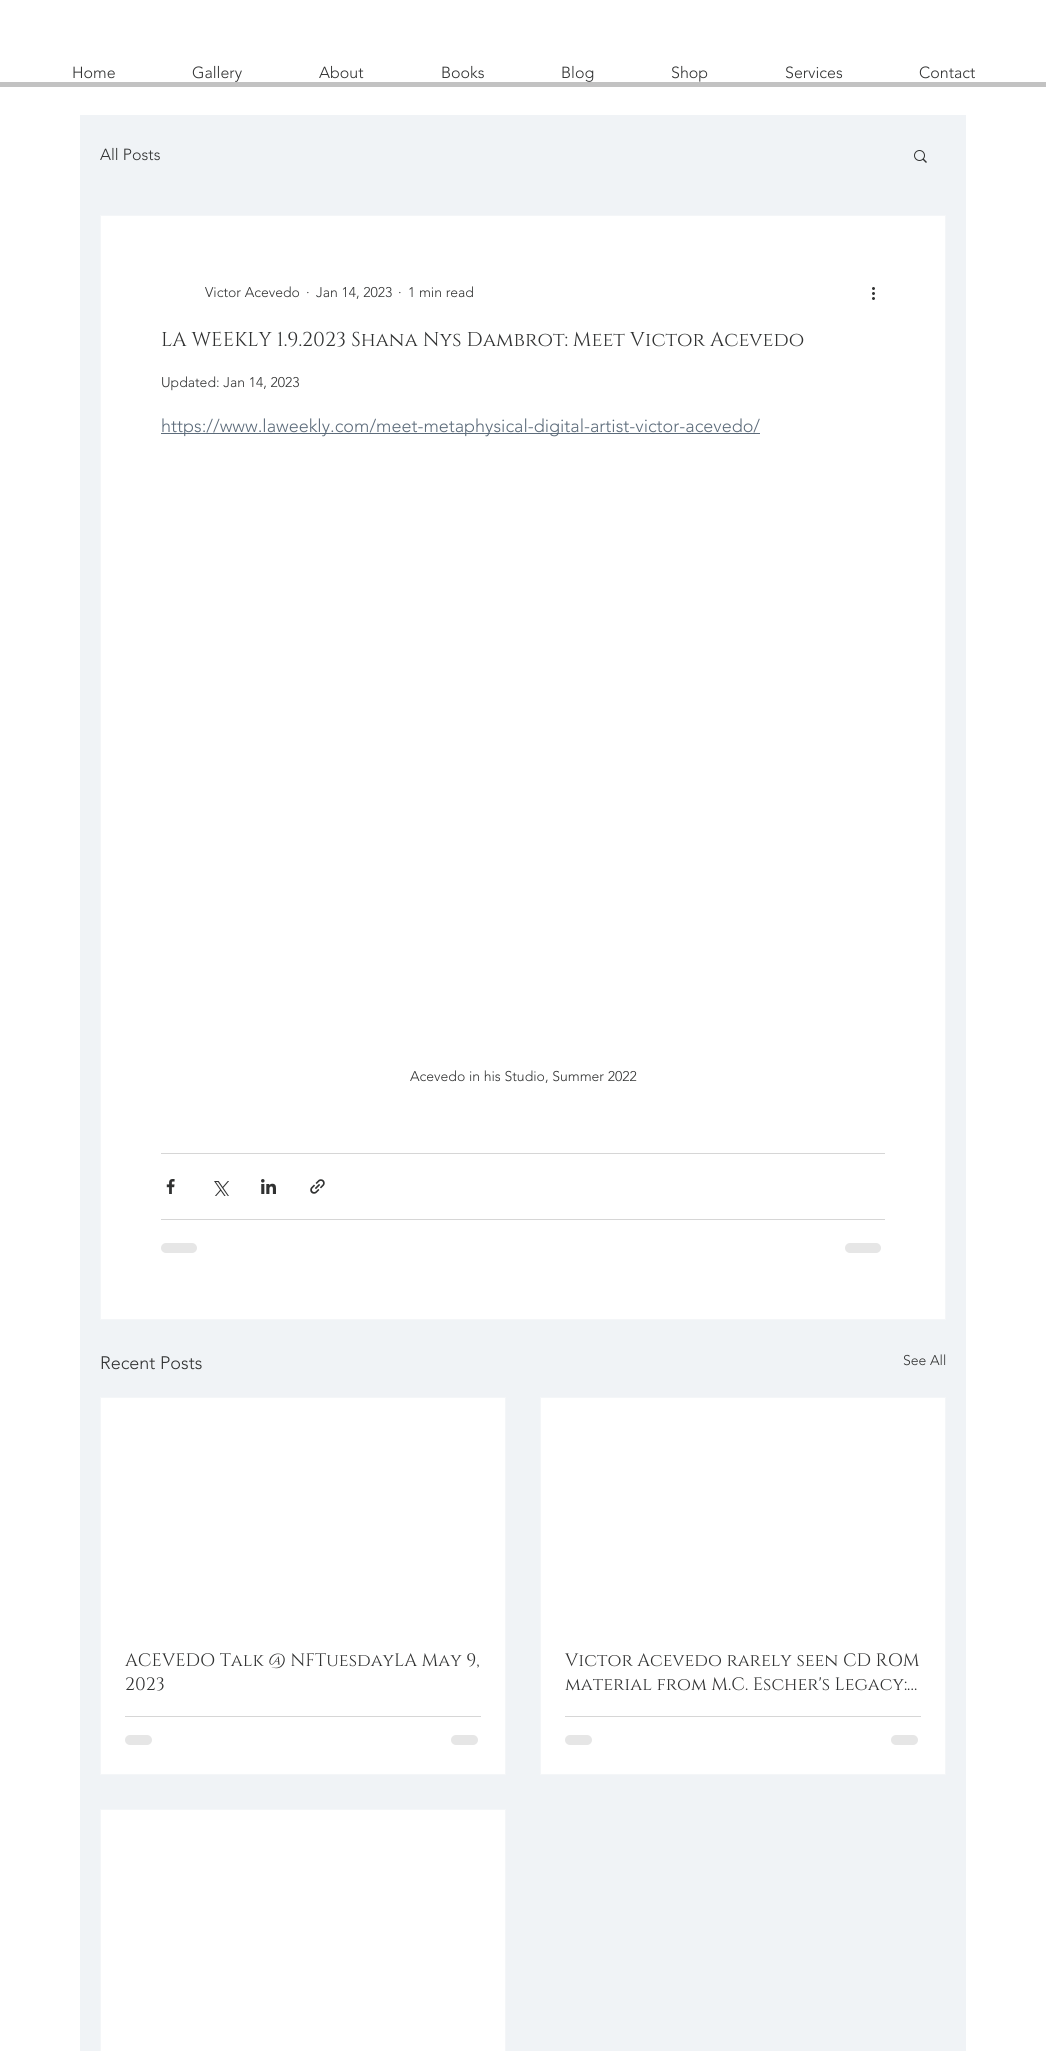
#include <cairo.h>
#include <math.h>
#include <stddef.h>

static cairo_t *ctx;

static void use_color(int r, int g, int b) {
    cairo_set_source_rgb(ctx, r / 255.0, g / 255.0, b / 255.0);
}

static void round_rect(double x, double y, double w, double h, double r) {
    cairo_new_sub_path(ctx);
    cairo_arc(ctx, x + w - r, y + h - r, r, 0, M_PI / 2);
    cairo_arc(ctx, x + r, y + h - r, r, M_PI / 2, M_PI);
    cairo_arc(ctx, x + r, y + r, r, M_PI, 1.5 * M_PI);
    cairo_arc(ctx, x + w - r, y + r, r, 1.5 * M_PI, 2 * M_PI);
    cairo_close_path(ctx);
}

static void picture(const char *path, double x, double y, double w, double h) {
    cairo_surface_t *image = cairo_image_surface_create_from_png(path);
    cairo_save(ctx);
    cairo_set_source_surface(ctx, image, x, y);
    cairo_rectangle(ctx, x, y, w, h);
    cairo_fill(ctx);
    cairo_restore(ctx);
    cairo_surface_destroy(image);
}

int main(void) {
    cairo_surface_t *surface = cairo_image_surface_create(CAIRO_FORMAT_RGB24, 1046, 2051);
    ctx = cairo_create(surface);
    cairo_font_options_t *options = cairo_font_options_create();
    cairo_font_options_set_hint_metrics(options, CAIRO_HINT_METRICS_OFF);
    cairo_font_options_set_hint_style(options, CAIRO_HINT_STYLE_NONE);
    cairo_set_font_options(ctx, options);
    cairo_set_miter_limit(ctx, 4);
    use_color(255, 255, 255);
    cairo_paint(ctx);
    cairo_select_font_face(ctx, "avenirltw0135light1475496 Light", CAIRO_FONT_SLANT_NORMAL, CAIRO_FONT_WEIGHT_NORMAL);
    cairo_set_font_size(ctx, 16);
    use_color(48, 49, 49);
    cairo_move_to(ctx, 72, 78);
    cairo_show_text(ctx, "Home");
    cairo_move_to(ctx, 192, 78);
    cairo_show_text(ctx, "Gallery");
    cairo_move_to(ctx, 319, 78);
    cairo_show_text(ctx, "About");
    cairo_move_to(ctx, 441, 78);
    cairo_show_text(ctx, "Books");
    cairo_move_to(ctx, 561, 78);
    cairo_show_text(ctx, "Blog");
    cairo_move_to(ctx, 671, 78);
    cairo_show_text(ctx, "Shop");
    cairo_move_to(ctx, 785, 78);
    cairo_show_text(ctx, "Services");
    cairo_move_to(ctx, 919, 78);
    cairo_show_text(ctx, "Contact");
    use_color(194, 194, 194);
    cairo_rectangle(ctx, 0, 82, 1046, 5);
    cairo_fill(ctx);
    use_color(240, 243, 246);
    cairo_rectangle(ctx, 80, 115, 886, 1936);
    cairo_fill(ctx);
    use_color(48, 49, 49);
    cairo_move_to(ctx, 100, 160);
    cairo_show_text(ctx, "All Posts");
    picture("img1.png", 914, 150, 13, 13);
    use_color(255, 255, 255);
    cairo_rectangle(ctx, 100.5, 215.5, 845, 1104);
    cairo_fill_preserve(ctx);
    use_color(244, 246, 248);
    cairo_set_line_width(ctx, 1);
    cairo_stroke(ctx);
    cairo_set_font_size(ctx, 14);
    use_color(48, 49, 49);
    cairo_move_to(ctx, 205, 297);
    cairo_show_text(ctx, "Victor Acevedo");
    cairo_move_to(ctx, 306, 297);
    cairo_show_text(ctx, "·");
    cairo_move_to(ctx, 316, 297);
    cairo_show_text(ctx, "Jan 14, 2023");
    cairo_move_to(ctx, 398, 297);
    cairo_show_text(ctx, "·");
    cairo_move_to(ctx, 408, 297);
    cairo_show_text(ctx, "1 min read");
    picture("img2.png", 872, 287, 3, 13);
    cairo_select_font_face(ctx, "Cinzel", CAIRO_FONT_SLANT_NORMAL, CAIRO_FONT_WEIGHT_NORMAL);
    cairo_set_font_size(ctx, 20);
    cairo_move_to(ctx, 161, 346);
    cairo_show_text(ctx, "LA WEEKLY 1.9.2023 Shana Nys Dambrot: Meet Victor Acevedo");
    cairo_select_font_face(ctx, "avenirltw0135light1475496 Light", CAIRO_FONT_SLANT_NORMAL, CAIRO_FONT_WEIGHT_NORMAL);
    cairo_set_font_size(ctx, 14);
    cairo_move_to(ctx, 161, 387);
    cairo_show_text(ctx, "Updated: Jan 14, 2023");
    use_color(92, 107, 122);
    cairo_rectangle(ctx, 161, 433, 599, 1);
    cairo_fill(ctx);
    cairo_set_font_size(ctx, 18);
    cairo_move_to(ctx, 161, 432);
    cairo_show_text(ctx, "https://www.laweekly.com/meet-metaphysical-digital-artist-victor-acevedo/");
    cairo_set_font_size(ctx, 14);
    use_color(48, 49, 49);
    cairo_move_to(ctx, 410, 1081);
    cairo_show_text(ctx, "Acevedo in his Studio, Summer 2022");
    use_color(214, 214, 214);
    cairo_rectangle(ctx, 161, 1153, 724, 1);
    cairo_fill(ctx);
    picture("img3.png", 166, 1179, 9, 15);
    picture("img4.png", 214, 1181, 15, 15);
    picture("img5.png", 261, 1179, 15, 15);
    picture("img6.png", 310, 1179, 15, 15);
    cairo_rectangle(ctx, 161, 1219, 724, 1);
    cairo_fill(ctx);
    use_color(230, 230, 230);
    round_rect(161, 1243, 36, 10, 5);
    cairo_fill(ctx);
    round_rect(845, 1243, 36, 10, 5);
    cairo_fill(ctx);
    cairo_set_font_size(ctx, 18);
    use_color(48, 49, 49);
    cairo_move_to(ctx, 100, 1369);
    cairo_show_text(ctx, "Recent Posts");
    cairo_set_font_size(ctx, 14);
    cairo_move_to(ctx, 903, 1365);
    cairo_show_text(ctx, "See All");
    use_color(255, 255, 255);
    cairo_rectangle(ctx, 100.5, 1397.5, 405, 377);
    cairo_fill_preserve(ctx);
    use_color(244, 246, 248);
    cairo_stroke(ctx);
    cairo_select_font_face(ctx, "Cinzel", CAIRO_FONT_SLANT_NORMAL, CAIRO_FONT_WEIGHT_NORMAL);
    cairo_set_font_size(ctx, 18);
    use_color(48, 49, 49);
    cairo_move_to(ctx, 125, 1666);
    cairo_show_text(ctx, "ACEVEDO Talk @ NFTuesdayLA May 9,");
    cairo_move_to(ctx, 125, 1690);
    cairo_show_text(ctx, "2023");
    use_color(214, 214, 214);
    cairo_rectangle(ctx, 125, 1716, 356, 1);
    cairo_fill(ctx);
    use_color(230, 230, 230);
    round_rect(125, 1735, 27, 10, 5);
    cairo_fill(ctx);
    round_rect(451, 1735, 27, 10, 5);
    cairo_fill(ctx);
    use_color(255, 255, 255);
    cairo_rectangle(ctx, 540.5, 1397.5, 405, 377);
    cairo_fill_preserve(ctx);
    use_color(244, 246, 248);
    cairo_stroke(ctx);
    use_color(48, 49, 49);
    cairo_move_to(ctx, 565, 1666);
    cairo_show_text(ctx, "Victor Acevedo rarely seen CD ROM");
    cairo_move_to(ctx, 565, 1690);
    cairo_show_text(ctx, "material from M.C. Escher's Legacy:…");
    use_color(214, 214, 214);
    cairo_rectangle(ctx, 565, 1716, 356, 1);
    cairo_fill(ctx);
    use_color(230, 230, 230);
    round_rect(565, 1735, 27, 10, 5);
    cairo_fill(ctx);
    round_rect(891, 1735, 27, 10, 5);
    cairo_fill(ctx);
    use_color(255, 255, 255);
    cairo_rectangle(ctx, 100.5, 1809.5, 405, 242);
    cairo_fill_preserve(ctx);
    use_color(244, 246, 248);
    cairo_stroke(ctx);
    cairo_surface_write_to_png(surface, "result.png");
    cairo_font_options_destroy(options);
    cairo_destroy(ctx);
    cairo_surface_destroy(surface);
    return 0;
}
